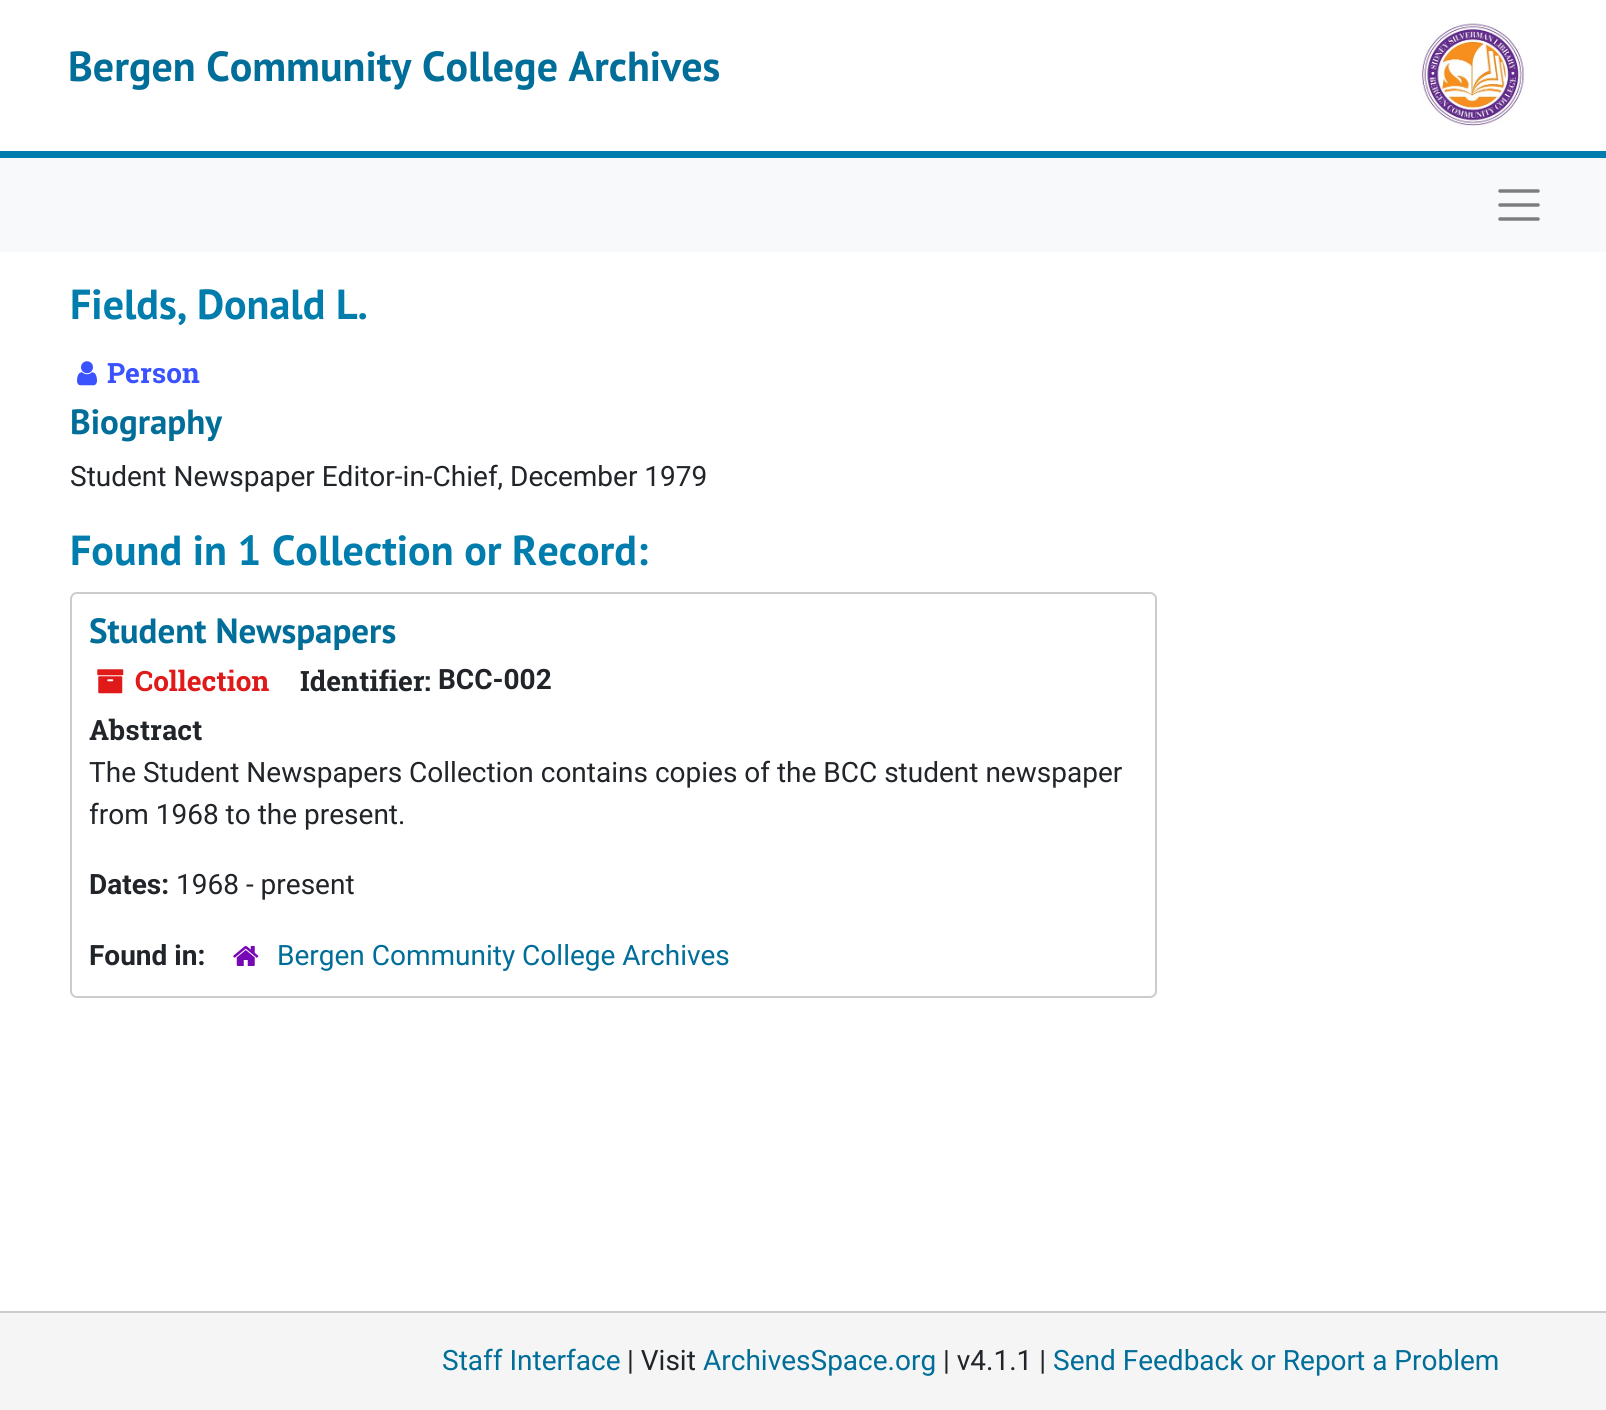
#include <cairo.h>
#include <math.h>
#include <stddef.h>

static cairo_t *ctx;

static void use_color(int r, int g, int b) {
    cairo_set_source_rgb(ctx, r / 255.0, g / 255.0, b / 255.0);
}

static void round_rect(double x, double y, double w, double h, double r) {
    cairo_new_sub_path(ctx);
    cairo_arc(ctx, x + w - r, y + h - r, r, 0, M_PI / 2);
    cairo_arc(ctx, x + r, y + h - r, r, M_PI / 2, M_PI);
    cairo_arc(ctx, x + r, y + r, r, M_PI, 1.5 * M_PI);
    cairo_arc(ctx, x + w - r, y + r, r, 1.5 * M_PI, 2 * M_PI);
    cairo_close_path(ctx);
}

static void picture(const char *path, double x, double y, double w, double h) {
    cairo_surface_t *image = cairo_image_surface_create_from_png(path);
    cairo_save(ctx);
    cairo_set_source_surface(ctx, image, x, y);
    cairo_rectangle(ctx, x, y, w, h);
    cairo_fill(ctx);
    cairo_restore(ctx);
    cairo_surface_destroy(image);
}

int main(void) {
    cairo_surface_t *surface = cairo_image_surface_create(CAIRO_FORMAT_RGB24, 1606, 1410);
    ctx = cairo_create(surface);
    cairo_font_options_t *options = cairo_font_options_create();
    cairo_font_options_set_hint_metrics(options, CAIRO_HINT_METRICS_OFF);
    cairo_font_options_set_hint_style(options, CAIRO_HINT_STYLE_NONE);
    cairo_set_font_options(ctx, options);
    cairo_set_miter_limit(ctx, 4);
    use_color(255, 255, 255);
    cairo_paint(ctx);
    use_color(0, 124, 173);
    cairo_rectangle(ctx, 0, 151, 1606, 7);
    cairo_fill(ctx);
    cairo_select_font_face(ctx, "PT Sans", CAIRO_FONT_SLANT_NORMAL, CAIRO_FONT_WEIGHT_BOLD);
    cairo_set_font_size(ctx, 42);
    use_color(0, 110, 153);
    cairo_move_to(ctx, 68, 81);
    cairo_show_text(ctx, "Bergen Community College Archives");
    picture("img1.png", 1421, 23, 104, 103);
    use_color(248, 249, 250);
    cairo_rectangle(ctx, 0, 158, 1606, 94);
    cairo_fill(ctx);
    cairo_new_path(ctx);
    cairo_move_to(ctx, 1500, 191);
    cairo_line_to(ctx, 1538, 191);
    cairo_move_to(ctx, 1500, 205);
    cairo_line_to(ctx, 1538, 205);
    cairo_move_to(ctx, 1500, 219);
    cairo_line_to(ctx, 1538, 219);
    use_color(124, 125, 125);
    cairo_set_line_width(ctx, 3.5);
    cairo_set_line_cap(ctx, CAIRO_LINE_CAP_ROUND);
    cairo_stroke(ctx);
    use_color(0, 124, 173);
    cairo_move_to(ctx, 70, 319);
    cairo_show_text(ctx, "Fields, Donald L.");
    picture("img2.png", 77, 361, 20, 25);
    cairo_select_font_face(ctx, "Roboto Slab", CAIRO_FONT_SLANT_NORMAL, CAIRO_FONT_WEIGHT_BOLD);
    cairo_set_font_size(ctx, 28);
    use_color(59, 82, 255);
    cairo_move_to(ctx, 107, 383);
    cairo_show_text(ctx, "Person");
    cairo_select_font_face(ctx, "PT Sans", CAIRO_FONT_SLANT_NORMAL, CAIRO_FONT_WEIGHT_BOLD);
    cairo_set_font_size(ctx, 35);
    use_color(0, 110, 153);
    cairo_move_to(ctx, 70, 434);
    cairo_show_text(ctx, "Biography");
    cairo_select_font_face(ctx, "Roboto", CAIRO_FONT_SLANT_NORMAL, CAIRO_FONT_WEIGHT_NORMAL);
    cairo_set_font_size(ctx, 28);
    use_color(33, 37, 41);
    cairo_move_to(ctx, 70, 486);
    cairo_show_text(ctx, "Student Newspaper Editor-in-Chief, December 1979");
    cairo_select_font_face(ctx, "PT Sans", CAIRO_FONT_SLANT_NORMAL, CAIRO_FONT_WEIGHT_BOLD);
    cairo_set_font_size(ctx, 42);
    use_color(0, 124, 173);
    cairo_move_to(ctx, 70, 565);
    cairo_show_text(ctx, "Found in 1 Collection or Record:");
    round_rect(71, 593, 1085, 404, 6);
    use_color(204, 204, 204);
    cairo_set_line_width(ctx, 2);
    cairo_set_line_cap(ctx, CAIRO_LINE_CAP_BUTT);
    cairo_stroke(ctx);
    cairo_set_font_size(ctx, 35);
    use_color(0, 110, 153);
    cairo_move_to(ctx, 89, 643);
    cairo_show_text(ctx, "Student Newspapers");
    picture("img3.png", 97, 669, 27, 25);
    cairo_select_font_face(ctx, "Roboto Slab", CAIRO_FONT_SLANT_NORMAL, CAIRO_FONT_WEIGHT_BOLD);
    cairo_set_font_size(ctx, 28);
    use_color(224, 25, 25);
    cairo_move_to(ctx, 135, 691);
    cairo_show_text(ctx, "Collection");
    use_color(33, 37, 41);
    cairo_move_to(ctx, 300, 691);
    cairo_show_text(ctx, "Identifier:");
    cairo_select_font_face(ctx, "Roboto", CAIRO_FONT_SLANT_NORMAL, CAIRO_FONT_WEIGHT_BOLD);
    cairo_move_to(ctx, 438, 689);
    cairo_show_text(ctx, "BCC-002");
    cairo_select_font_face(ctx, "Roboto Slab", CAIRO_FONT_SLANT_NORMAL, CAIRO_FONT_WEIGHT_BOLD);
    cairo_move_to(ctx, 89, 740);
    cairo_show_text(ctx, "Abstract");
    cairo_select_font_face(ctx, "Roboto", CAIRO_FONT_SLANT_NORMAL, CAIRO_FONT_WEIGHT_NORMAL);
    cairo_move_to(ctx, 89, 782);
    cairo_show_text(ctx, "The Student Newspapers Collection contains copies of the BCC student newspaper");
    cairo_move_to(ctx, 89, 824);
    cairo_show_text(ctx, "from 1968 to the present.");
    cairo_select_font_face(ctx, "Roboto", CAIRO_FONT_SLANT_NORMAL, CAIRO_FONT_WEIGHT_BOLD);
    cairo_move_to(ctx, 89, 894);
    cairo_show_text(ctx, "Dates:");
    cairo_select_font_face(ctx, "Roboto", CAIRO_FONT_SLANT_NORMAL, CAIRO_FONT_WEIGHT_NORMAL);
    cairo_move_to(ctx, 176, 894);
    cairo_show_text(ctx, "1968 - present");
    cairo_select_font_face(ctx, "Roboto", CAIRO_FONT_SLANT_NORMAL, CAIRO_FONT_WEIGHT_BOLD);
    cairo_move_to(ctx, 89, 965);
    cairo_show_text(ctx, "Found in:");
    picture("img4.png", 233, 946, 26, 20);
    cairo_select_font_face(ctx, "Roboto", CAIRO_FONT_SLANT_NORMAL, CAIRO_FONT_WEIGHT_NORMAL);
    use_color(0, 110, 153);
    cairo_move_to(ctx, 277, 965);
    cairo_show_text(ctx, "Bergen Community College Archives");
    use_color(245, 245, 245);
    cairo_rectangle(ctx, 0, 1313, 1606, 97);
    cairo_fill(ctx);
    use_color(204, 204, 204);
    cairo_rectangle(ctx, 0, 1311, 1606, 2);
    cairo_fill(ctx);
    use_color(0, 110, 153);
    cairo_move_to(ctx, 442, 1370);
    cairo_show_text(ctx, "Staff Interface");
    use_color(33, 37, 41);
    cairo_move_to(ctx, 627, 1370);
    cairo_show_text(ctx, "| Visit");
    use_color(0, 110, 153);
    cairo_move_to(ctx, 703, 1370);
    cairo_show_text(ctx, "ArchivesSpace.org");
    use_color(33, 37, 41);
    cairo_move_to(ctx, 943, 1370);
    cairo_show_text(ctx, "| v4.1.1 |");
    use_color(0, 110, 153);
    cairo_move_to(ctx, 1053, 1370);
    cairo_show_text(ctx, "Send Feedback or Report a Problem");
    cairo_surface_write_to_png(surface, "result.png");
    cairo_font_options_destroy(options);
    cairo_destroy(ctx);
    cairo_surface_destroy(surface);
    return 0;
}
